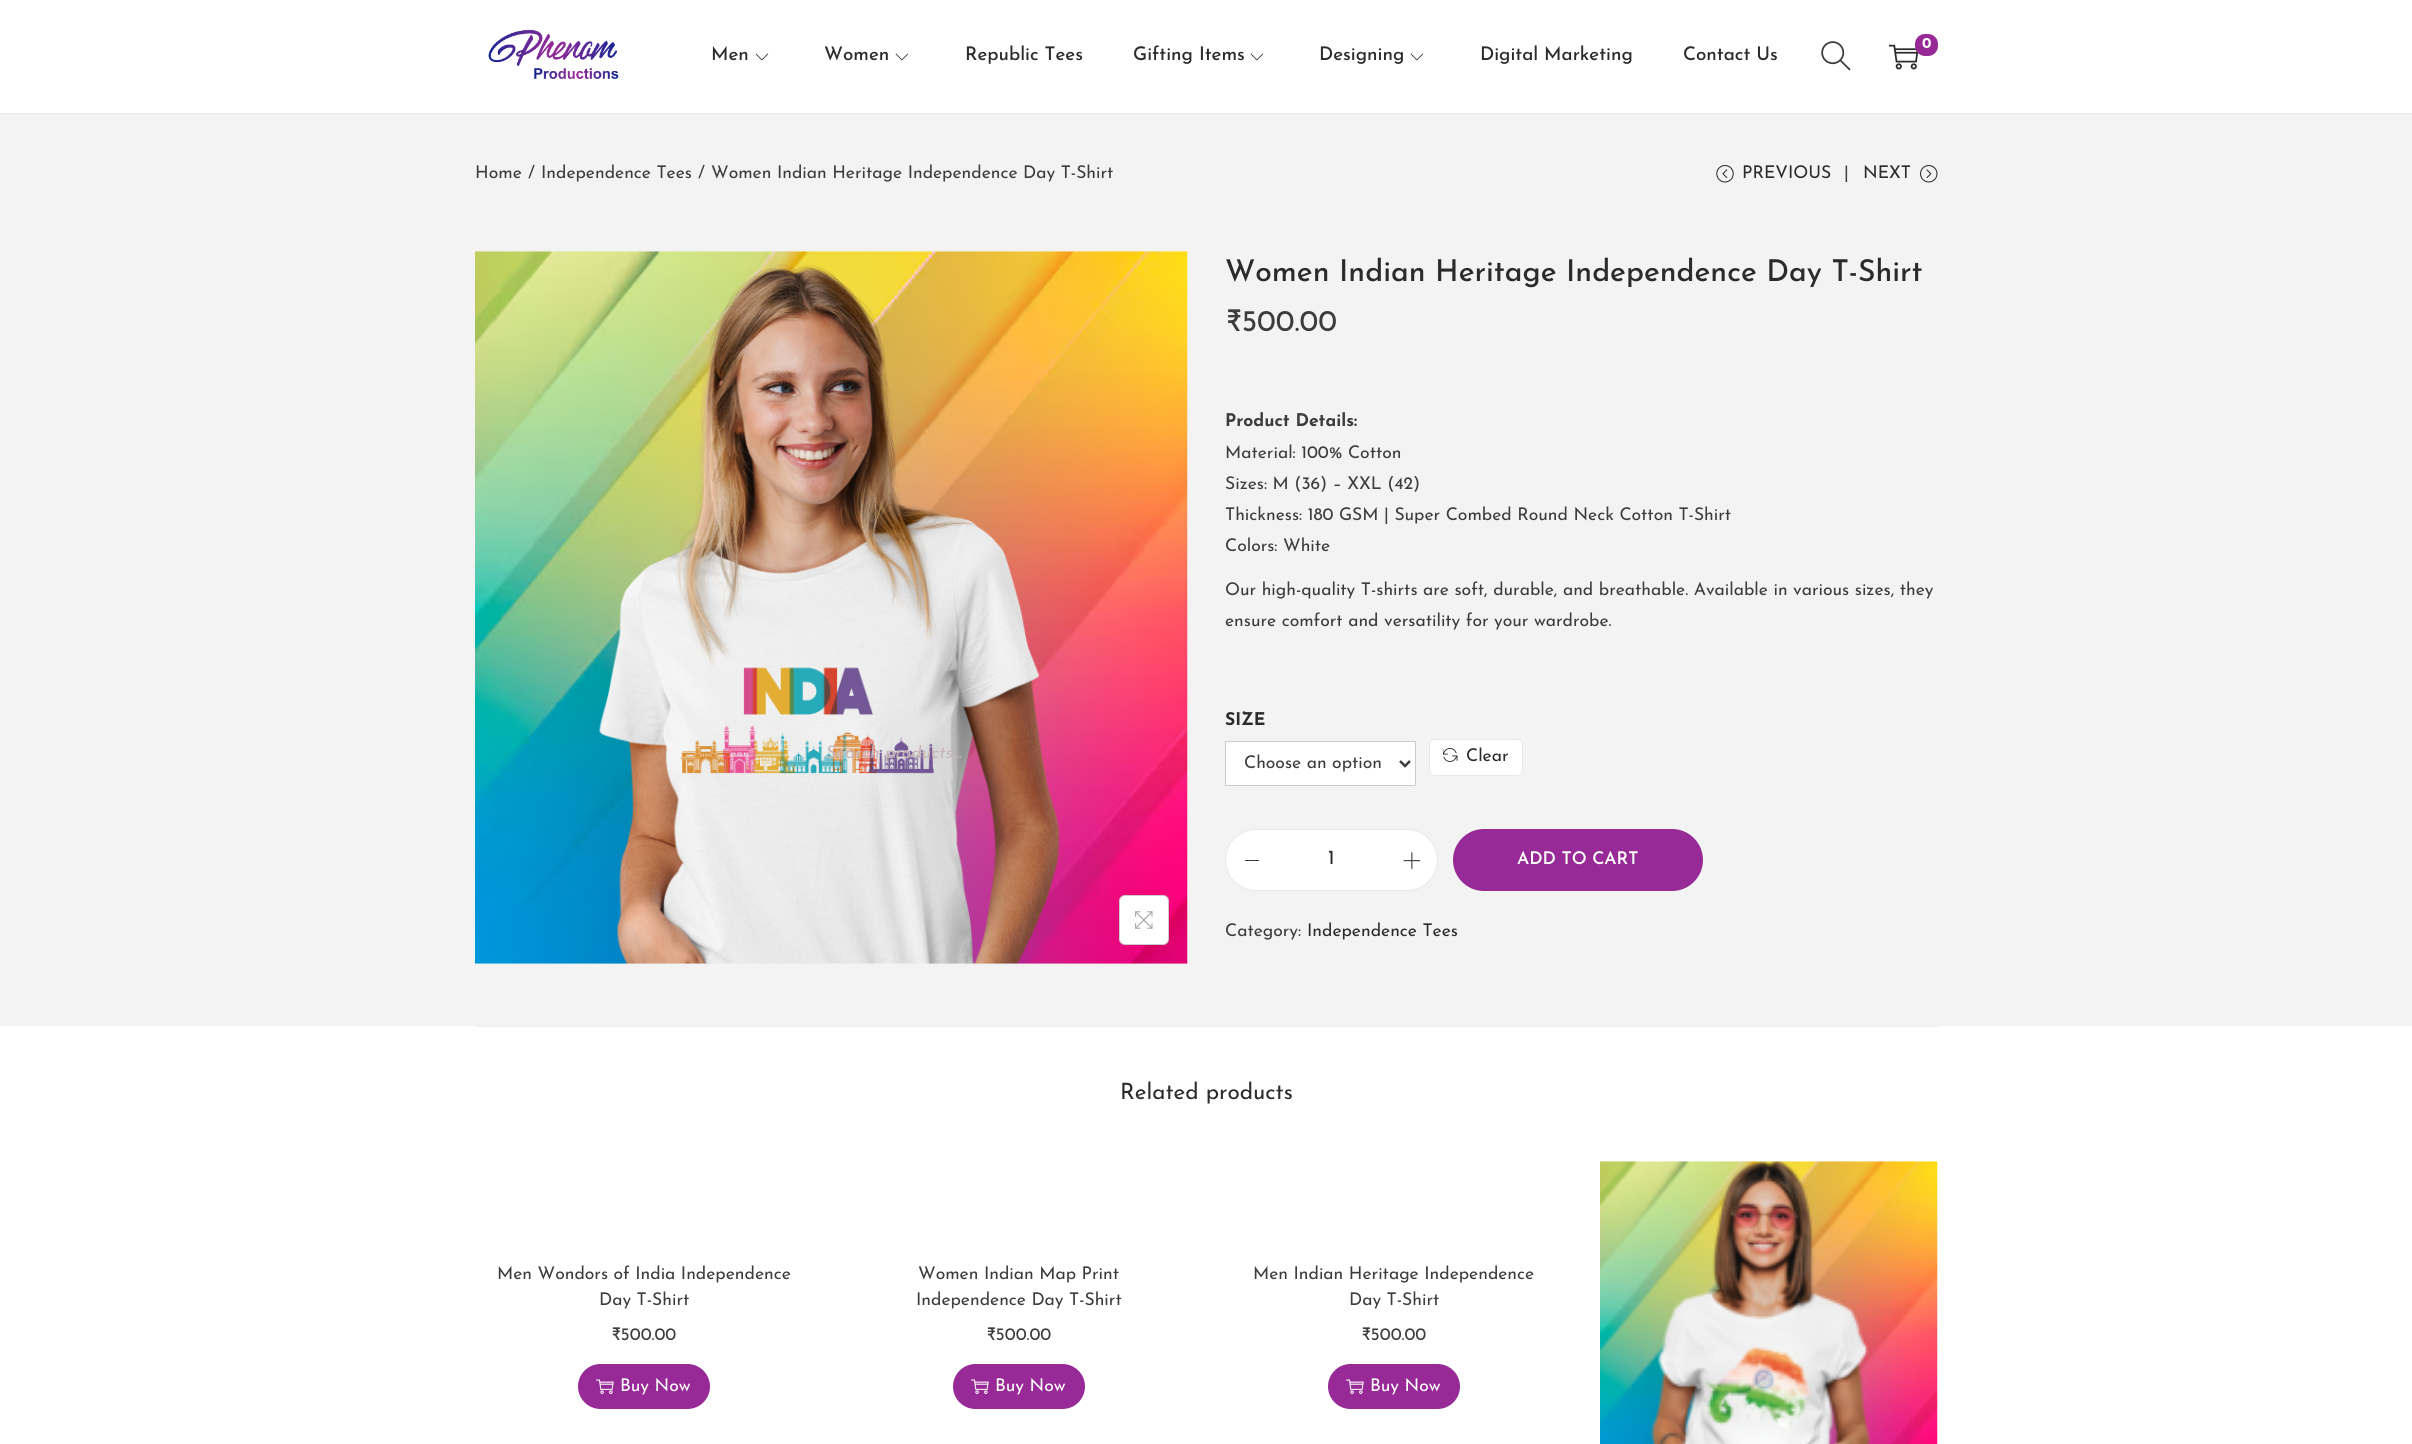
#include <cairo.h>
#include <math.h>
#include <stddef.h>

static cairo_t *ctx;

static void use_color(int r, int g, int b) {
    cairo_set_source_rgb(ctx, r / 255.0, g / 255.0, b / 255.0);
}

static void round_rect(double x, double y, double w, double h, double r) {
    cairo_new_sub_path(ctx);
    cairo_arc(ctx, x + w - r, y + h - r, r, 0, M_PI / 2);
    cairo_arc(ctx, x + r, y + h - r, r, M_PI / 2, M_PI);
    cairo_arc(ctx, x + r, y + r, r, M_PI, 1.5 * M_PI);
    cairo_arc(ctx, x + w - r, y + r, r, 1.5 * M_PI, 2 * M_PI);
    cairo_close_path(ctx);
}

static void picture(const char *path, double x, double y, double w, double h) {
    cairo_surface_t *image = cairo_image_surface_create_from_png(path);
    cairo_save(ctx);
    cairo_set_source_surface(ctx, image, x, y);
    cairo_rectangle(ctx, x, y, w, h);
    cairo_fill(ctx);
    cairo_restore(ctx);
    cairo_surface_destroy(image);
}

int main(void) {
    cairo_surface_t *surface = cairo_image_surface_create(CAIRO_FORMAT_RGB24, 2412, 1444);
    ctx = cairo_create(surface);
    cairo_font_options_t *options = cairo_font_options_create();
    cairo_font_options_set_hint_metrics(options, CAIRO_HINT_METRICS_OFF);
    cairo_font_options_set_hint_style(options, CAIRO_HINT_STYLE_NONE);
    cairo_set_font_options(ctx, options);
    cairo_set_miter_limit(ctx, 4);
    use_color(255, 255, 255);
    cairo_paint(ctx);
    use_color(234, 234, 234);
    cairo_rectangle(ctx, 0, 113, 2412, 1);
    cairo_fill(ctx);
    picture("img1.png", 488, 29, 131, 51);
    picture("img2.png", 1821, 41, 30, 30);
    picture("img3.png", 1889, 44, 30, 26);
    use_color(151, 42, 151);
    round_rect(1915, 34, 23, 22, 10);
    cairo_fill(ctx);
    cairo_select_font_face(ctx, "Josefin Sans", CAIRO_FONT_SLANT_NORMAL, CAIRO_FONT_WEIGHT_BOLD);
    cairo_set_font_size(ctx, 15);
    use_color(255, 255, 255);
    cairo_move_to(ctx, 1922, 48);
    cairo_show_text(ctx, "0");
    cairo_select_font_face(ctx, "Josefin Sans Medium", CAIRO_FONT_SLANT_NORMAL, CAIRO_FONT_WEIGHT_NORMAL);
    cairo_set_font_size(ctx, 18.75);
    use_color(43, 43, 43);
    cairo_move_to(ctx, 711, 60);
    cairo_show_text(ctx, "Men");
    picture("img4.png", 755, 53, 14, 8);
    cairo_move_to(ctx, 824, 60);
    cairo_show_text(ctx, "Women");
    picture("img4.png", 895, 53, 14, 8);
    cairo_move_to(ctx, 965, 60);
    cairo_show_text(ctx, "Republic Tees");
    cairo_move_to(ctx, 1133, 60);
    cairo_show_text(ctx, "Gifting Items");
    picture("img4.png", 1250, 53, 14, 8);
    cairo_move_to(ctx, 1319, 60);
    cairo_show_text(ctx, "Designing");
    picture("img4.png", 1410, 53, 14, 8);
    cairo_move_to(ctx, 1480, 60);
    cairo_show_text(ctx, "Digital Marketing");
    cairo_move_to(ctx, 1683, 60);
    cairo_show_text(ctx, "Contact Us");
    use_color(243, 243, 243);
    cairo_rectangle(ctx, 0, 114, 2412, 912);
    cairo_fill(ctx);
    cairo_select_font_face(ctx, "Josefin Sans", CAIRO_FONT_SLANT_NORMAL, CAIRO_FONT_WEIGHT_NORMAL);
    cairo_set_font_size(ctx, 17.5);
    use_color(60, 60, 60);
    cairo_move_to(ctx, 475, 178);
    cairo_show_text(ctx, "Home");
    cairo_move_to(ctx, 528, 178);
    cairo_show_text(ctx, "/");
    cairo_move_to(ctx, 541, 178);
    cairo_show_text(ctx, "Independence Tees");
    cairo_move_to(ctx, 698, 178);
    cairo_show_text(ctx, "/");
    cairo_move_to(ctx, 711, 178);
    cairo_show_text(ctx, "Women Indian Heritage Independence Day T-Shirt");
    picture("img5.png", 1716, 165, 18, 18);
    use_color(43, 43, 43);
    cairo_move_to(ctx, 1742, 178);
    cairo_show_text(ctx, "PREVIOUS");
    use_color(60, 60, 60);
    cairo_move_to(ctx, 1844, 178);
    cairo_show_text(ctx, "|");
    use_color(43, 43, 43);
    cairo_move_to(ctx, 1863, 178);
    cairo_show_text(ctx, "NEXT");
    picture("img6.png", 1920, 165, 18, 18);
    picture("img7.png", 475, 251, 713, 713);
    use_color(255, 255, 255);
    round_rect(1119.5, 895.5, 49, 49, 5.5);
    cairo_fill_preserve(ctx);
    use_color(204, 204, 204);
    cairo_set_line_width(ctx, 1);
    cairo_stroke(ctx);
    picture("img8.png", 1134, 911, 19, 18);
    cairo_select_font_face(ctx, "Josefin Sans Medium", CAIRO_FONT_SLANT_NORMAL, CAIRO_FONT_WEIGHT_NORMAL);
    cairo_set_font_size(ctx, 30);
    use_color(43, 43, 43);
    cairo_move_to(ctx, 1225, 281);
    cairo_show_text(ctx, "Women Indian Heritage Independence Day T-Shirt");
    cairo_select_font_face(ctx, "Josefin Sans", CAIRO_FONT_SLANT_NORMAL, CAIRO_FONT_WEIGHT_NORMAL);
    use_color(60, 60, 60);
    cairo_move_to(ctx, 1225, 331);
    cairo_show_text(ctx, "₹500.00");
    cairo_select_font_face(ctx, "Josefin Sans", CAIRO_FONT_SLANT_NORMAL, CAIRO_FONT_WEIGHT_BOLD);
    cairo_set_font_size(ctx, 17.5);
    cairo_move_to(ctx, 1225, 426);
    cairo_show_text(ctx, "Product Details:");
    cairo_select_font_face(ctx, "Josefin Sans", CAIRO_FONT_SLANT_NORMAL, CAIRO_FONT_WEIGHT_NORMAL);
    cairo_move_to(ctx, 1225, 458);
    cairo_show_text(ctx, "Material: 100% Cotton");
    cairo_move_to(ctx, 1225, 489);
    cairo_show_text(ctx, "Sizes: M (36) – XXL (42)");
    cairo_move_to(ctx, 1225, 520);
    cairo_show_text(ctx, "Thickness: 180 GSM | Super Combed Round Neck Cotton T-Shirt");
    cairo_move_to(ctx, 1225, 551);
    cairo_show_text(ctx, "Colors: White");
    cairo_move_to(ctx, 1225, 595);
    cairo_show_text(ctx, "Our high-quality T-shirts are soft, durable, and breathable. Available in various sizes, they");
    cairo_move_to(ctx, 1225, 626);
    cairo_show_text(ctx, "ensure comfort and versatility for your wardrobe.");
    cairo_select_font_face(ctx, "Josefin Sans", CAIRO_FONT_SLANT_NORMAL, CAIRO_FONT_WEIGHT_BOLD);
    use_color(43, 43, 43);
    cairo_move_to(ctx, 1225, 725);
    cairo_show_text(ctx, "SIZE");
    use_color(255, 255, 255);
    cairo_rectangle(ctx, 1225.5, 741.5, 190, 44);
    cairo_fill_preserve(ctx);
    use_color(204, 204, 204);
    cairo_stroke(ctx);
    cairo_new_path(ctx);
    cairo_move_to(ctx, 1400, 761);
    cairo_line_to(ctx, 1405, 766);
    cairo_line_to(ctx, 1410, 761);
    use_color(60, 60, 60);
    cairo_set_line_width(ctx, 2.5);
    cairo_stroke(ctx);
    cairo_select_font_face(ctx, "Josefin Sans", CAIRO_FONT_SLANT_NORMAL, CAIRO_FONT_WEIGHT_NORMAL);
    cairo_move_to(ctx, 1244, 768);
    cairo_show_text(ctx, "Choose an option");
    use_color(255, 255, 255);
    round_rect(1429.5, 739.5, 93, 36, 5.5);
    cairo_fill_preserve(ctx);
    use_color(232, 232, 232);
    cairo_set_line_width(ctx, 1);
    cairo_stroke(ctx);
    picture("img9.png", 1443, 748, 15, 14);
    use_color(43, 43, 43);
    cairo_move_to(ctx, 1466, 761);
    cairo_show_text(ctx, "Clear");
    use_color(255, 255, 255);
    round_rect(1225.5, 829.5, 212, 61, 30.5);
    cairo_fill_preserve(ctx);
    use_color(232, 232, 232);
    cairo_stroke(ctx);
    use_color(60, 60, 60);
    cairo_rectangle(ctx, 1245, 860, 14, 1);
    cairo_fill(ctx);
    cairo_set_font_size(ctx, 20);
    use_color(43, 43, 43);
    cairo_move_to(ctx, 1328, 864);
    cairo_show_text(ctx, "1");
    picture("img10.png", 1403, 852, 18, 17);
    use_color(151, 42, 151);
    round_rect(1453, 829, 250, 62, 31);
    cairo_fill(ctx);
    cairo_select_font_face(ctx, "Josefin Sans SemiBold", CAIRO_FONT_SLANT_NORMAL, CAIRO_FONT_WEIGHT_NORMAL);
    cairo_set_font_size(ctx, 17.5);
    use_color(255, 255, 255);
    cairo_move_to(ctx, 1517, 864);
    cairo_show_text(ctx, "ADD TO CART");
    cairo_select_font_face(ctx, "Josefin Sans", CAIRO_FONT_SLANT_NORMAL, CAIRO_FONT_WEIGHT_NORMAL);
    use_color(60, 60, 60);
    cairo_move_to(ctx, 1225, 936);
    cairo_show_text(ctx, "Category:");
    use_color(43, 43, 43);
    cairo_move_to(ctx, 1307, 936);
    cairo_show_text(ctx, "Independence Tees");
    use_color(239, 239, 239);
    cairo_rectangle(ctx, 475, 1026, 1463, 1);
    cairo_fill(ctx);
    cairo_set_font_size(ctx, 22.5);
    use_color(43, 43, 43);
    cairo_move_to(ctx, 1120, 1099);
    cairo_show_text(ctx, "Related products");
    cairo_set_font_size(ctx, 17.5);
    use_color(60, 60, 60);
    cairo_move_to(ctx, 497, 1279);
    cairo_show_text(ctx, "Men Wondors of India Independence");
    cairo_move_to(ctx, 599, 1305);
    cairo_show_text(ctx, "Day T-Shirt");
    cairo_move_to(ctx, 611, 1340);
    cairo_show_text(ctx, "₹500.00");
    use_color(151, 42, 151);
    round_rect(578, 1364, 132, 45, 22.5);
    cairo_fill(ctx);
    picture("img11.png", 596, 1379, 18, 15);
    use_color(255, 255, 255);
    cairo_move_to(ctx, 620, 1391);
    cairo_show_text(ctx, "Buy Now");
    use_color(60, 60, 60);
    cairo_move_to(ctx, 918, 1279);
    cairo_show_text(ctx, "Women Indian Map Print");
    cairo_move_to(ctx, 916, 1305);
    cairo_show_text(ctx, "Independence Day T-Shirt");
    cairo_move_to(ctx, 986, 1340);
    cairo_show_text(ctx, "₹500.00");
    use_color(151, 42, 151);
    round_rect(953, 1364, 132, 45, 22.5);
    cairo_fill(ctx);
    picture("img11.png", 971, 1379, 18, 15);
    use_color(255, 255, 255);
    cairo_move_to(ctx, 995, 1391);
    cairo_show_text(ctx, "Buy Now");
    use_color(60, 60, 60);
    cairo_move_to(ctx, 1253, 1279);
    cairo_show_text(ctx, "Men Indian Heritage Independence");
    cairo_move_to(ctx, 1349, 1305);
    cairo_show_text(ctx, "Day T-Shirt");
    cairo_move_to(ctx, 1361, 1340);
    cairo_show_text(ctx, "₹500.00");
    use_color(151, 42, 151);
    round_rect(1328, 1364, 132, 45, 22.5);
    cairo_fill(ctx);
    picture("img11.png", 1346, 1379, 18, 15);
    use_color(255, 255, 255);
    cairo_move_to(ctx, 1370, 1391);
    cairo_show_text(ctx, "Buy Now");
    picture("img12.png", 1600, 1161, 338, 283);
    cairo_save(ctx);
    cairo_rectangle(ctx, 826, 745, 723, 19);
    cairo_clip(ctx);
    cairo_select_font_face(ctx, "Josefin Sans", CAIRO_FONT_SLANT_ITALIC, CAIRO_FONT_WEIGHT_NORMAL);
    use_color(200, 182, 182);
    cairo_move_to(ctx, 826, 758);
    cairo_show_text(ctx, "Search products…");
    cairo_restore(ctx);
    cairo_surface_write_to_png(surface, "result.png");
    cairo_font_options_destroy(options);
    cairo_destroy(ctx);
    cairo_surface_destroy(surface);
    return 0;
}
